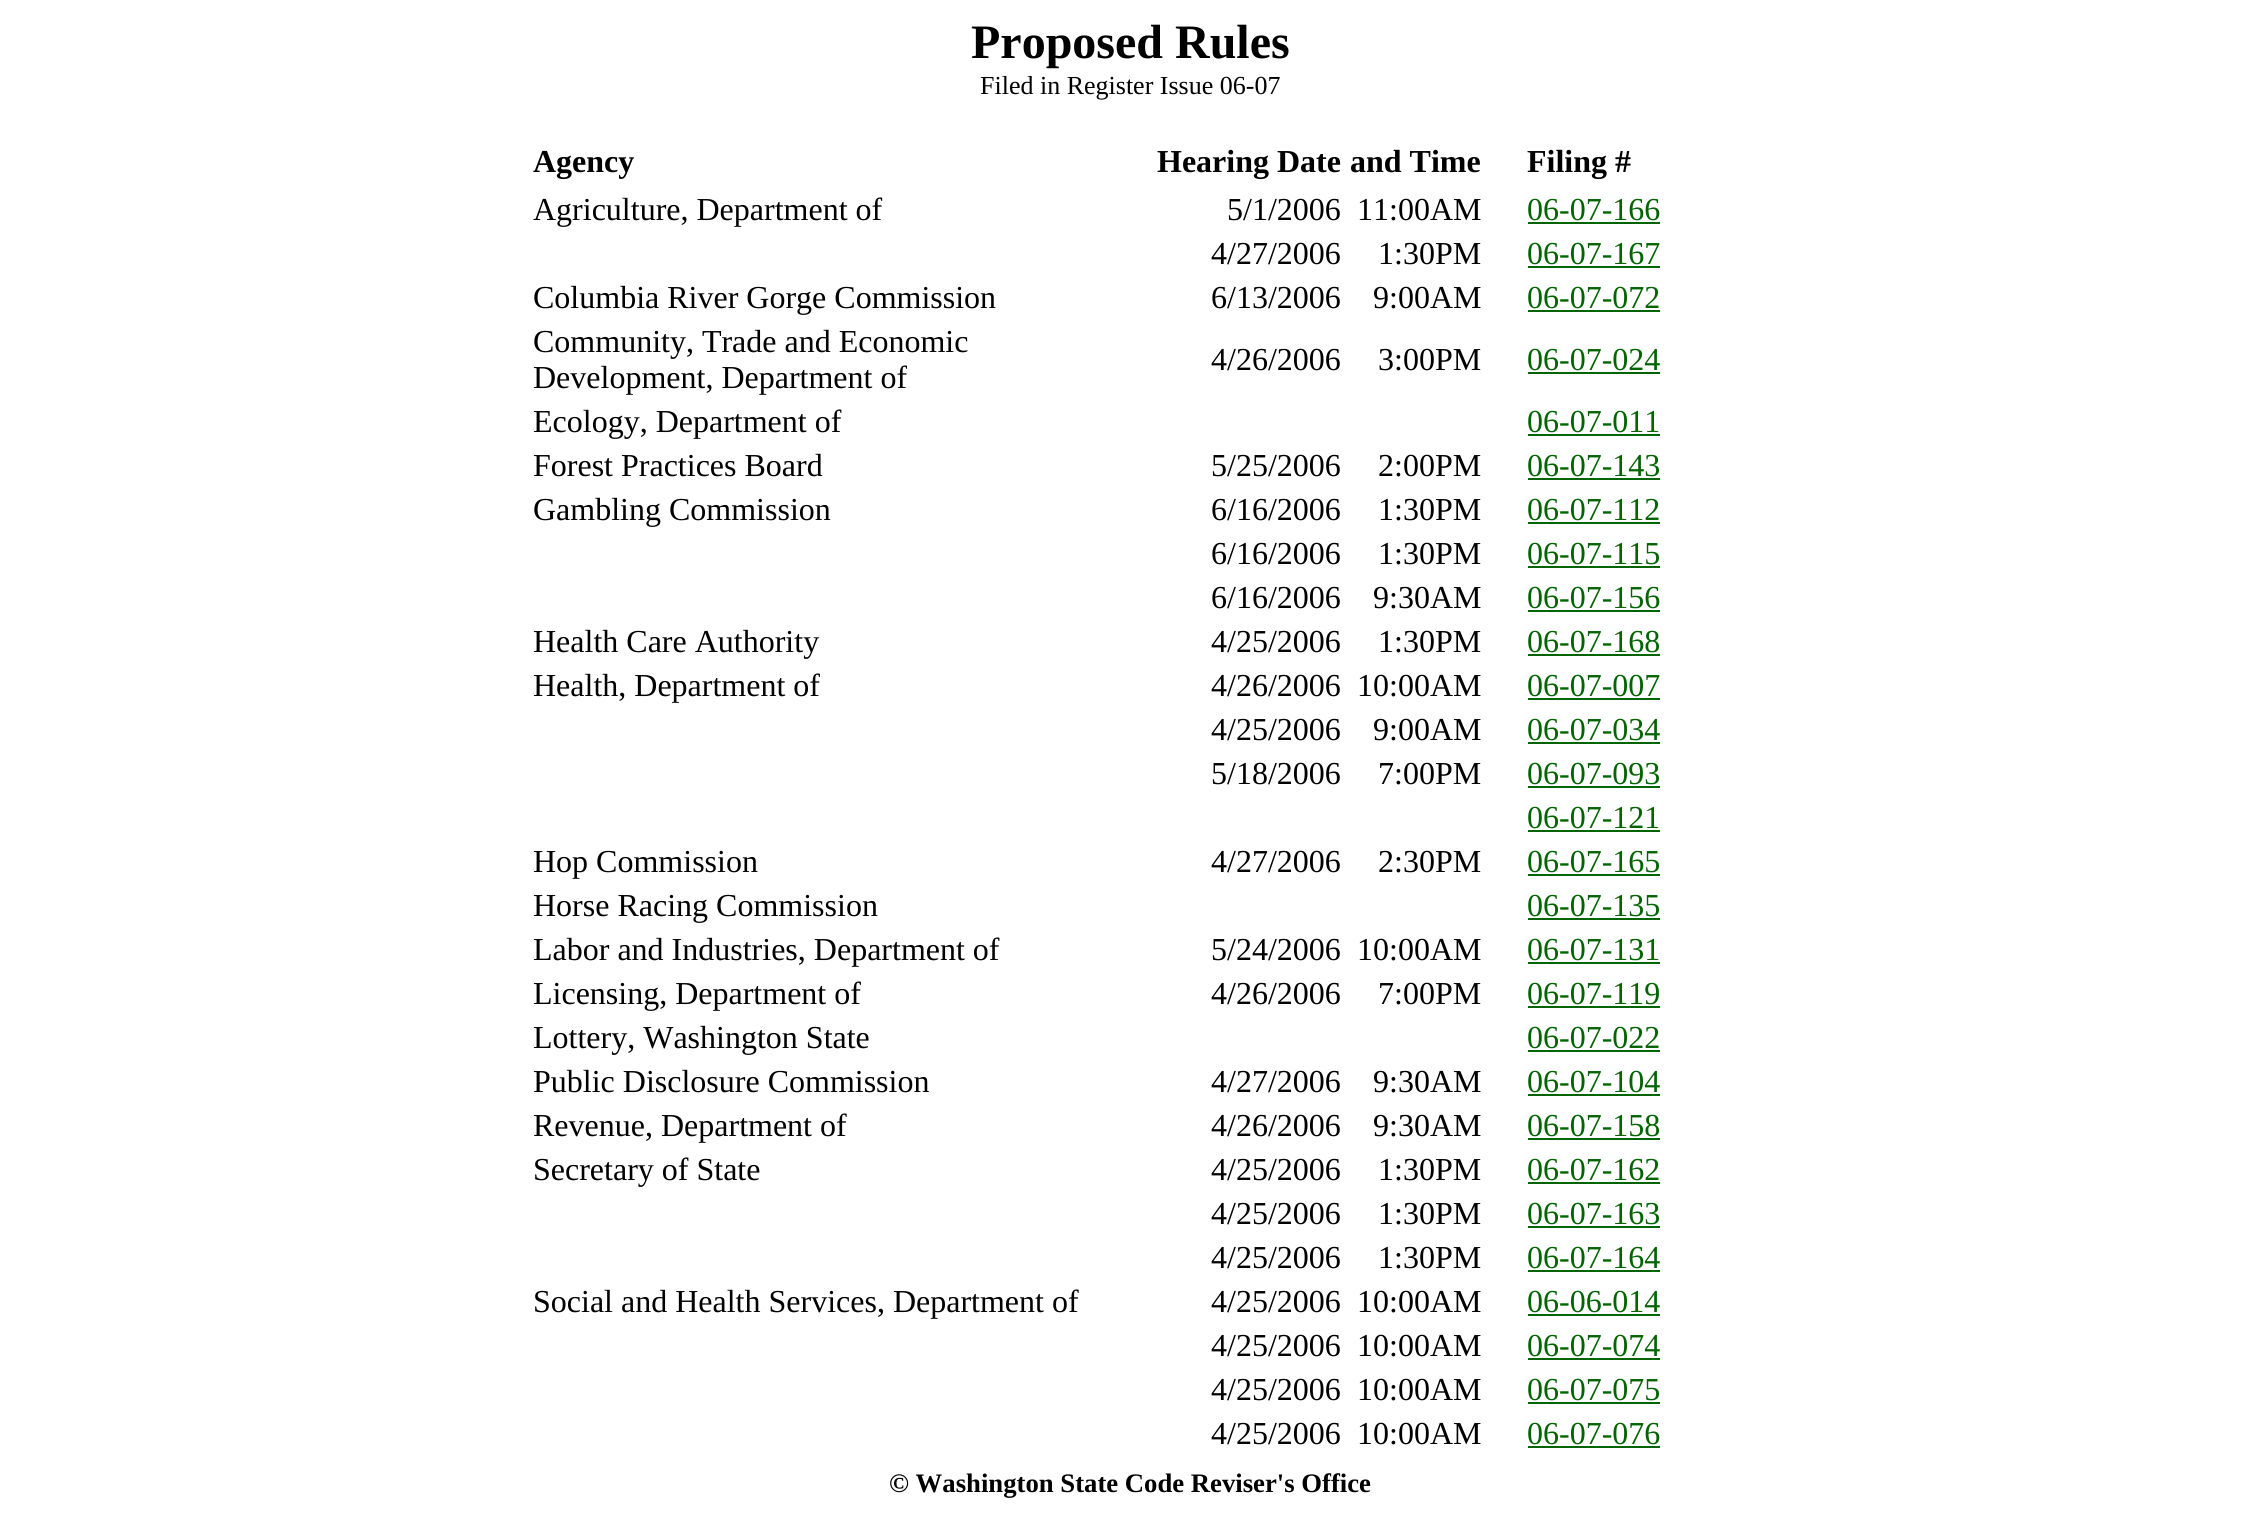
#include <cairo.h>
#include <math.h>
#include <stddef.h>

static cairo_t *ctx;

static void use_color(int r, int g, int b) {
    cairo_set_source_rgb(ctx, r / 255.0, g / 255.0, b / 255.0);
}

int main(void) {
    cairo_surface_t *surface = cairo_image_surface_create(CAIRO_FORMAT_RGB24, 2260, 1527);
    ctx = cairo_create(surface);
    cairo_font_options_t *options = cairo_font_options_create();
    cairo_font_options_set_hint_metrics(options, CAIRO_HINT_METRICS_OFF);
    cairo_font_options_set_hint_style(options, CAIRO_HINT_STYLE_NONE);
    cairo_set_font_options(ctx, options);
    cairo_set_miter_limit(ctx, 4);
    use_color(255, 255, 255);
    cairo_paint(ctx);
    cairo_select_font_face(ctx, "Liberation Serif", CAIRO_FONT_SLANT_NORMAL, CAIRO_FONT_WEIGHT_BOLD);
    cairo_set_font_size(ctx, 48);
    use_color(0, 0, 0);
    cairo_move_to(ctx, 971, 58);
    cairo_show_text(ctx, "Proposed Rules");
    cairo_select_font_face(ctx, "Liberation Serif", CAIRO_FONT_SLANT_NORMAL, CAIRO_FONT_WEIGHT_NORMAL);
    cairo_set_font_size(ctx, 26);
    cairo_move_to(ctx, 980, 94);
    cairo_show_text(ctx, "Filed in Register Issue 06-07");
    cairo_select_font_face(ctx, "Liberation Serif", CAIRO_FONT_SLANT_NORMAL, CAIRO_FONT_WEIGHT_BOLD);
    cairo_set_font_size(ctx, 32);
    cairo_move_to(ctx, 533, 172);
    cairo_show_text(ctx, "Agency");
    cairo_move_to(ctx, 1157, 172);
    cairo_show_text(ctx, "Hearing Date");
    cairo_move_to(ctx, 1350, 172);
    cairo_show_text(ctx, "and Time");
    cairo_move_to(ctx, 1527, 172);
    cairo_show_text(ctx, "Filing #");
    cairo_select_font_face(ctx, "Liberation Serif", CAIRO_FONT_SLANT_NORMAL, CAIRO_FONT_WEIGHT_NORMAL);
    cairo_move_to(ctx, 533, 220);
    cairo_show_text(ctx, "Agriculture, Department of");
    cairo_move_to(ctx, 1227, 220);
    cairo_show_text(ctx, "5/1/2006");
    cairo_move_to(ctx, 1357, 220);
    cairo_show_text(ctx, "11:00AM");
    use_color(0, 100, 0);
    cairo_move_to(ctx, 1527, 220);
    cairo_show_text(ctx, "06-07-166");
    cairo_rectangle(ctx, 1528, 222, 132, 2);
    cairo_fill(ctx);
    use_color(0, 0, 0);
    cairo_move_to(ctx, 1211, 264);
    cairo_show_text(ctx, "4/27/2006");
    cairo_move_to(ctx, 1378, 264);
    cairo_show_text(ctx, "1:30PM");
    use_color(0, 100, 0);
    cairo_move_to(ctx, 1527, 264);
    cairo_show_text(ctx, "06-07-167");
    cairo_rectangle(ctx, 1528, 266, 132, 2);
    cairo_fill(ctx);
    use_color(0, 0, 0);
    cairo_move_to(ctx, 533, 308);
    cairo_show_text(ctx, "Columbia River Gorge Commission");
    cairo_move_to(ctx, 1211, 308);
    cairo_show_text(ctx, "6/13/2006");
    cairo_move_to(ctx, 1373, 308);
    cairo_show_text(ctx, "9:00AM");
    use_color(0, 100, 0);
    cairo_move_to(ctx, 1527, 308);
    cairo_show_text(ctx, "06-07-072");
    cairo_rectangle(ctx, 1528, 310, 132, 2);
    cairo_fill(ctx);
    use_color(0, 0, 0);
    cairo_move_to(ctx, 533, 352);
    cairo_show_text(ctx, "Community, Trade and Economic");
    cairo_move_to(ctx, 533, 388);
    cairo_show_text(ctx, "Development, Department of");
    cairo_move_to(ctx, 1211, 370);
    cairo_show_text(ctx, "4/26/2006");
    cairo_move_to(ctx, 1378, 370);
    cairo_show_text(ctx, "3:00PM");
    use_color(0, 100, 0);
    cairo_move_to(ctx, 1527, 370);
    cairo_show_text(ctx, "06-07-024");
    cairo_rectangle(ctx, 1528, 372, 132, 2);
    cairo_fill(ctx);
    use_color(0, 0, 0);
    cairo_move_to(ctx, 533, 432);
    cairo_show_text(ctx, "Ecology, Department of");
    use_color(0, 100, 0);
    cairo_move_to(ctx, 1527, 432);
    cairo_show_text(ctx, "06-07-011");
    cairo_rectangle(ctx, 1528, 434, 132, 2);
    cairo_fill(ctx);
    use_color(0, 0, 0);
    cairo_move_to(ctx, 533, 476);
    cairo_show_text(ctx, "Forest Practices Board");
    cairo_move_to(ctx, 1211, 476);
    cairo_show_text(ctx, "5/25/2006");
    cairo_move_to(ctx, 1378, 476);
    cairo_show_text(ctx, "2:00PM");
    use_color(0, 100, 0);
    cairo_move_to(ctx, 1527, 476);
    cairo_show_text(ctx, "06-07-143");
    cairo_rectangle(ctx, 1528, 478, 132, 2);
    cairo_fill(ctx);
    use_color(0, 0, 0);
    cairo_move_to(ctx, 533, 520);
    cairo_show_text(ctx, "Gambling Commission");
    cairo_move_to(ctx, 1211, 520);
    cairo_show_text(ctx, "6/16/2006");
    cairo_move_to(ctx, 1378, 520);
    cairo_show_text(ctx, "1:30PM");
    use_color(0, 100, 0);
    cairo_move_to(ctx, 1527, 520);
    cairo_show_text(ctx, "06-07-112");
    cairo_rectangle(ctx, 1528, 522, 132, 2);
    cairo_fill(ctx);
    use_color(0, 0, 0);
    cairo_move_to(ctx, 1211, 564);
    cairo_show_text(ctx, "6/16/2006");
    cairo_move_to(ctx, 1378, 564);
    cairo_show_text(ctx, "1:30PM");
    use_color(0, 100, 0);
    cairo_move_to(ctx, 1527, 564);
    cairo_show_text(ctx, "06-07-115");
    cairo_rectangle(ctx, 1528, 566, 132, 2);
    cairo_fill(ctx);
    use_color(0, 0, 0);
    cairo_move_to(ctx, 1211, 608);
    cairo_show_text(ctx, "6/16/2006");
    cairo_move_to(ctx, 1373, 608);
    cairo_show_text(ctx, "9:30AM");
    use_color(0, 100, 0);
    cairo_move_to(ctx, 1527, 608);
    cairo_show_text(ctx, "06-07-156");
    cairo_rectangle(ctx, 1528, 610, 132, 2);
    cairo_fill(ctx);
    use_color(0, 0, 0);
    cairo_move_to(ctx, 533, 652);
    cairo_show_text(ctx, "Health Care Authority");
    cairo_move_to(ctx, 1211, 652);
    cairo_show_text(ctx, "4/25/2006");
    cairo_move_to(ctx, 1378, 652);
    cairo_show_text(ctx, "1:30PM");
    use_color(0, 100, 0);
    cairo_move_to(ctx, 1527, 652);
    cairo_show_text(ctx, "06-07-168");
    cairo_rectangle(ctx, 1528, 654, 132, 2);
    cairo_fill(ctx);
    use_color(0, 0, 0);
    cairo_move_to(ctx, 533, 696);
    cairo_show_text(ctx, "Health, Department of");
    cairo_move_to(ctx, 1211, 696);
    cairo_show_text(ctx, "4/26/2006");
    cairo_move_to(ctx, 1357, 696);
    cairo_show_text(ctx, "10:00AM");
    use_color(0, 100, 0);
    cairo_move_to(ctx, 1527, 696);
    cairo_show_text(ctx, "06-07-007");
    cairo_rectangle(ctx, 1528, 698, 132, 2);
    cairo_fill(ctx);
    use_color(0, 0, 0);
    cairo_move_to(ctx, 1211, 740);
    cairo_show_text(ctx, "4/25/2006");
    cairo_move_to(ctx, 1373, 740);
    cairo_show_text(ctx, "9:00AM");
    use_color(0, 100, 0);
    cairo_move_to(ctx, 1527, 740);
    cairo_show_text(ctx, "06-07-034");
    cairo_rectangle(ctx, 1528, 742, 132, 2);
    cairo_fill(ctx);
    use_color(0, 0, 0);
    cairo_move_to(ctx, 1211, 784);
    cairo_show_text(ctx, "5/18/2006");
    cairo_move_to(ctx, 1378, 784);
    cairo_show_text(ctx, "7:00PM");
    use_color(0, 100, 0);
    cairo_move_to(ctx, 1527, 784);
    cairo_show_text(ctx, "06-07-093");
    cairo_rectangle(ctx, 1528, 786, 132, 2);
    cairo_fill(ctx);
    cairo_move_to(ctx, 1527, 828);
    cairo_show_text(ctx, "06-07-121");
    cairo_rectangle(ctx, 1528, 830, 132, 2);
    cairo_fill(ctx);
    use_color(0, 0, 0);
    cairo_move_to(ctx, 533, 872);
    cairo_show_text(ctx, "Hop Commission");
    cairo_move_to(ctx, 1211, 872);
    cairo_show_text(ctx, "4/27/2006");
    cairo_move_to(ctx, 1378, 872);
    cairo_show_text(ctx, "2:30PM");
    use_color(0, 100, 0);
    cairo_move_to(ctx, 1527, 872);
    cairo_show_text(ctx, "06-07-165");
    cairo_rectangle(ctx, 1528, 874, 132, 2);
    cairo_fill(ctx);
    use_color(0, 0, 0);
    cairo_move_to(ctx, 533, 916);
    cairo_show_text(ctx, "Horse Racing Commission");
    use_color(0, 100, 0);
    cairo_move_to(ctx, 1527, 916);
    cairo_show_text(ctx, "06-07-135");
    cairo_rectangle(ctx, 1528, 918, 132, 2);
    cairo_fill(ctx);
    use_color(0, 0, 0);
    cairo_move_to(ctx, 533, 960);
    cairo_show_text(ctx, "Labor and Industries, Department of");
    cairo_move_to(ctx, 1211, 960);
    cairo_show_text(ctx, "5/24/2006");
    cairo_move_to(ctx, 1357, 960);
    cairo_show_text(ctx, "10:00AM");
    use_color(0, 100, 0);
    cairo_move_to(ctx, 1527, 960);
    cairo_show_text(ctx, "06-07-131");
    cairo_rectangle(ctx, 1528, 962, 132, 2);
    cairo_fill(ctx);
    use_color(0, 0, 0);
    cairo_move_to(ctx, 533, 1004);
    cairo_show_text(ctx, "Licensing, Department of");
    cairo_move_to(ctx, 1211, 1004);
    cairo_show_text(ctx, "4/26/2006");
    cairo_move_to(ctx, 1378, 1004);
    cairo_show_text(ctx, "7:00PM");
    use_color(0, 100, 0);
    cairo_move_to(ctx, 1527, 1004);
    cairo_show_text(ctx, "06-07-119");
    cairo_rectangle(ctx, 1528, 1006, 132, 2);
    cairo_fill(ctx);
    use_color(0, 0, 0);
    cairo_move_to(ctx, 533, 1048);
    cairo_show_text(ctx, "Lottery, Washington State");
    use_color(0, 100, 0);
    cairo_move_to(ctx, 1527, 1048);
    cairo_show_text(ctx, "06-07-022");
    cairo_rectangle(ctx, 1528, 1050, 132, 2);
    cairo_fill(ctx);
    use_color(0, 0, 0);
    cairo_move_to(ctx, 533, 1092);
    cairo_show_text(ctx, "Public Disclosure Commission");
    cairo_move_to(ctx, 1211, 1092);
    cairo_show_text(ctx, "4/27/2006");
    cairo_move_to(ctx, 1373, 1092);
    cairo_show_text(ctx, "9:30AM");
    use_color(0, 100, 0);
    cairo_move_to(ctx, 1527, 1092);
    cairo_show_text(ctx, "06-07-104");
    cairo_rectangle(ctx, 1528, 1094, 132, 2);
    cairo_fill(ctx);
    use_color(0, 0, 0);
    cairo_move_to(ctx, 533, 1136);
    cairo_show_text(ctx, "Revenue, Department of");
    cairo_move_to(ctx, 1211, 1136);
    cairo_show_text(ctx, "4/26/2006");
    cairo_move_to(ctx, 1373, 1136);
    cairo_show_text(ctx, "9:30AM");
    use_color(0, 100, 0);
    cairo_move_to(ctx, 1527, 1136);
    cairo_show_text(ctx, "06-07-158");
    cairo_rectangle(ctx, 1528, 1138, 132, 2);
    cairo_fill(ctx);
    use_color(0, 0, 0);
    cairo_move_to(ctx, 533, 1180);
    cairo_show_text(ctx, "Secretary of State");
    cairo_move_to(ctx, 1211, 1180);
    cairo_show_text(ctx, "4/25/2006");
    cairo_move_to(ctx, 1378, 1180);
    cairo_show_text(ctx, "1:30PM");
    use_color(0, 100, 0);
    cairo_move_to(ctx, 1527, 1180);
    cairo_show_text(ctx, "06-07-162");
    cairo_rectangle(ctx, 1528, 1182, 132, 2);
    cairo_fill(ctx);
    use_color(0, 0, 0);
    cairo_move_to(ctx, 1211, 1224);
    cairo_show_text(ctx, "4/25/2006");
    cairo_move_to(ctx, 1378, 1224);
    cairo_show_text(ctx, "1:30PM");
    use_color(0, 100, 0);
    cairo_move_to(ctx, 1527, 1224);
    cairo_show_text(ctx, "06-07-163");
    cairo_rectangle(ctx, 1528, 1226, 132, 2);
    cairo_fill(ctx);
    use_color(0, 0, 0);
    cairo_move_to(ctx, 1211, 1268);
    cairo_show_text(ctx, "4/25/2006");
    cairo_move_to(ctx, 1378, 1268);
    cairo_show_text(ctx, "1:30PM");
    use_color(0, 100, 0);
    cairo_move_to(ctx, 1527, 1268);
    cairo_show_text(ctx, "06-07-164");
    cairo_rectangle(ctx, 1528, 1270, 132, 2);
    cairo_fill(ctx);
    use_color(0, 0, 0);
    cairo_move_to(ctx, 533, 1312);
    cairo_show_text(ctx, "Social and Health Services, Department of");
    cairo_move_to(ctx, 1211, 1312);
    cairo_show_text(ctx, "4/25/2006");
    cairo_move_to(ctx, 1357, 1312);
    cairo_show_text(ctx, "10:00AM");
    use_color(0, 100, 0);
    cairo_move_to(ctx, 1527, 1312);
    cairo_show_text(ctx, "06-06-014");
    cairo_rectangle(ctx, 1528, 1314, 132, 2);
    cairo_fill(ctx);
    use_color(0, 0, 0);
    cairo_move_to(ctx, 1211, 1356);
    cairo_show_text(ctx, "4/25/2006");
    cairo_move_to(ctx, 1357, 1356);
    cairo_show_text(ctx, "10:00AM");
    use_color(0, 100, 0);
    cairo_move_to(ctx, 1527, 1356);
    cairo_show_text(ctx, "06-07-074");
    cairo_rectangle(ctx, 1528, 1358, 132, 2);
    cairo_fill(ctx);
    use_color(0, 0, 0);
    cairo_move_to(ctx, 1211, 1400);
    cairo_show_text(ctx, "4/25/2006");
    cairo_move_to(ctx, 1357, 1400);
    cairo_show_text(ctx, "10:00AM");
    use_color(0, 100, 0);
    cairo_move_to(ctx, 1527, 1400);
    cairo_show_text(ctx, "06-07-075");
    cairo_rectangle(ctx, 1528, 1402, 132, 2);
    cairo_fill(ctx);
    use_color(0, 0, 0);
    cairo_move_to(ctx, 1211, 1444);
    cairo_show_text(ctx, "4/25/2006");
    cairo_move_to(ctx, 1357, 1444);
    cairo_show_text(ctx, "10:00AM");
    use_color(0, 100, 0);
    cairo_move_to(ctx, 1527, 1444);
    cairo_show_text(ctx, "06-07-076");
    cairo_rectangle(ctx, 1528, 1446, 132, 2);
    cairo_fill(ctx);
    cairo_select_font_face(ctx, "Liberation Serif", CAIRO_FONT_SLANT_NORMAL, CAIRO_FONT_WEIGHT_BOLD);
    cairo_set_font_size(ctx, 26.7);
    use_color(0, 0, 0);
    cairo_move_to(ctx, 889, 1492);
    cairo_show_text(ctx, "© Washington State Code Reviser's Office");
    cairo_surface_write_to_png(surface, "result.png");
    cairo_font_options_destroy(options);
    cairo_destroy(ctx);
    cairo_surface_destroy(surface);
    return 0;
}
